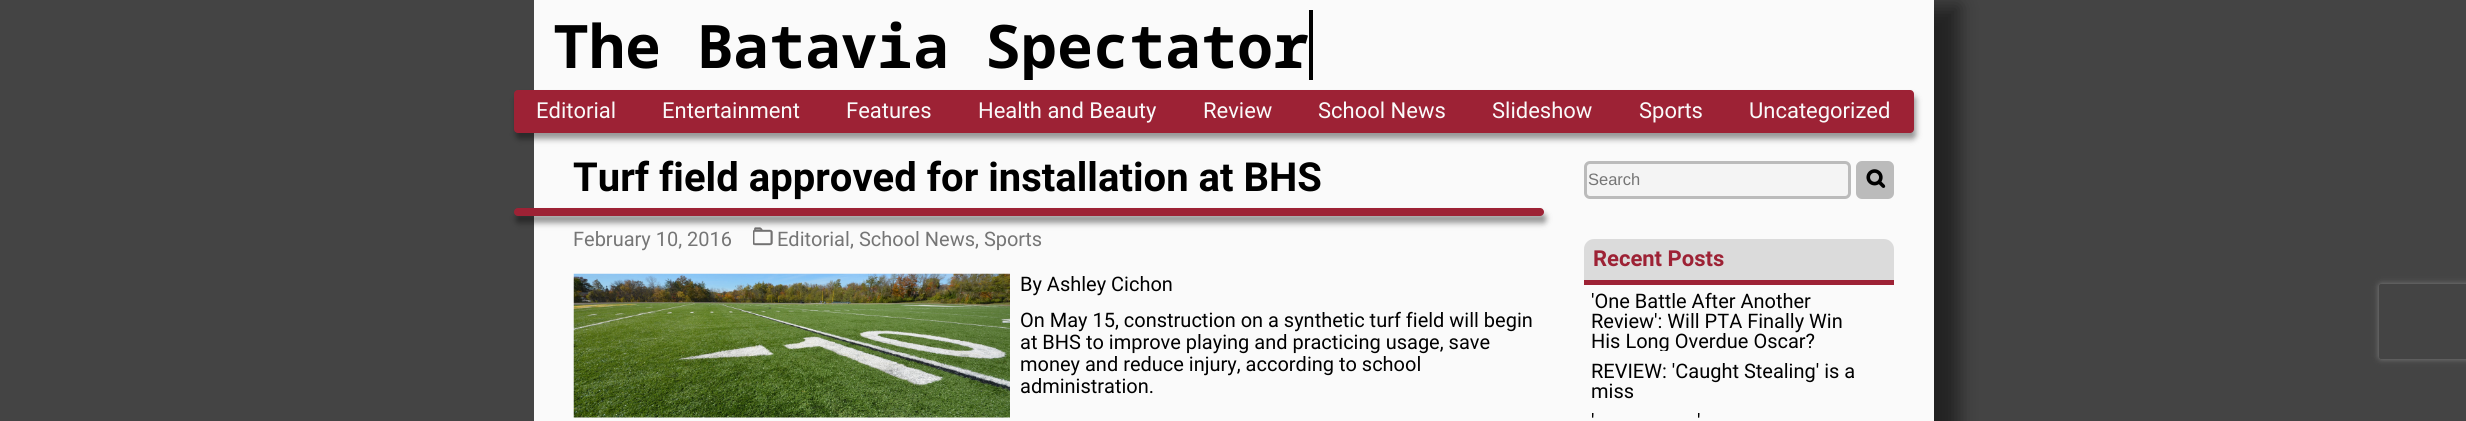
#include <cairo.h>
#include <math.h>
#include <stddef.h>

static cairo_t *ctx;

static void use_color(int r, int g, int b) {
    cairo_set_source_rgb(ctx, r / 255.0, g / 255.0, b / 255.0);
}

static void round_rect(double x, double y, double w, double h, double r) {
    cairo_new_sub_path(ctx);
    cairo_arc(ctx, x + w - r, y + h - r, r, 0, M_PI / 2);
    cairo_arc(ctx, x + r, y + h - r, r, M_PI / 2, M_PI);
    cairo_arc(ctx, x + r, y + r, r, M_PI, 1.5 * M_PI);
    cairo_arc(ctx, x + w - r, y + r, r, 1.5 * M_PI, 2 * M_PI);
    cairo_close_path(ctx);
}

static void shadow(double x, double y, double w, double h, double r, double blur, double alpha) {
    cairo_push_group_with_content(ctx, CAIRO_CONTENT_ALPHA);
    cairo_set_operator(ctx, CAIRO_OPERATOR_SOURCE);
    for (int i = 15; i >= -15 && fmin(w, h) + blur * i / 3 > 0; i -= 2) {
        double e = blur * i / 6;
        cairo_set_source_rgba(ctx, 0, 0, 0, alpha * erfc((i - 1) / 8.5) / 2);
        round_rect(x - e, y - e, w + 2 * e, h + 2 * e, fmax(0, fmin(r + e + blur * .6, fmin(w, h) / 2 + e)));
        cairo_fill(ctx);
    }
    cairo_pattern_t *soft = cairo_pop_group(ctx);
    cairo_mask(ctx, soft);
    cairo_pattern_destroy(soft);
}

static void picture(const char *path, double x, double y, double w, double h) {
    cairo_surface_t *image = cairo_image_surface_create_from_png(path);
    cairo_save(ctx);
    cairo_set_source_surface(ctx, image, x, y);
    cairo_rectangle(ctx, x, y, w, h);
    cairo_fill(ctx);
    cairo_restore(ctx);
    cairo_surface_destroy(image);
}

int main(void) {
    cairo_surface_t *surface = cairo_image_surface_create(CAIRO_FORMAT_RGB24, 2466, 421);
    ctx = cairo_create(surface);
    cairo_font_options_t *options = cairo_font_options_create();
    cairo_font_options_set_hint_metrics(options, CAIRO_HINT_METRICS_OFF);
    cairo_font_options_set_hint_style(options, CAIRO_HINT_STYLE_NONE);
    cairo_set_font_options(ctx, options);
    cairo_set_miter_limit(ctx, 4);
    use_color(68, 68, 68);
    cairo_paint(ctx);
    use_color(0, 0, 0);
    shadow(559, 6, 1400, 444, 0, 9.5, 0.5);
    use_color(250, 250, 250);
    cairo_rectangle(ctx, 534, 0, 1400, 421);
    cairo_fill(ctx);
    use_color(0, 0, 0);
    cairo_rectangle(ctx, 1309, 10, 4, 70);
    cairo_fill(ctx);
    cairo_save(ctx);
    cairo_rectangle(ctx, 554, 10, 755, 70);
    cairo_clip(ctx);
    cairo_select_font_face(ctx, "Noto Sans Mono", CAIRO_FONT_SLANT_NORMAL, CAIRO_FONT_WEIGHT_BOLD);
    cairo_set_font_size(ctx, 60);
    cairo_move_to(ctx, 553, 68);
    cairo_show_text(ctx, "The Batavia Spectator");
    cairo_restore(ctx);
    use_color(0, 0, 0);
    shadow(516, 96, 1400, 43, 4, 3, 0.4);
    use_color(157, 34, 53);
    round_rect(514, 90, 1400, 43, 4);
    cairo_fill(ctx);
    cairo_select_font_face(ctx, "Roboto", CAIRO_FONT_SLANT_NORMAL, CAIRO_FONT_WEIGHT_NORMAL);
    cairo_set_font_size(ctx, 22);
    use_color(250, 250, 250);
    cairo_move_to(ctx, 536, 118);
    cairo_show_text(ctx, "Editorial");
    cairo_move_to(ctx, 662, 118);
    cairo_show_text(ctx, "Entertainment");
    cairo_move_to(ctx, 846, 118);
    cairo_show_text(ctx, "Features");
    cairo_move_to(ctx, 978, 118);
    cairo_show_text(ctx, "Health and Beauty");
    cairo_move_to(ctx, 1203, 118);
    cairo_show_text(ctx, "Review");
    cairo_move_to(ctx, 1318, 118);
    cairo_show_text(ctx, "School News");
    cairo_move_to(ctx, 1492, 118);
    cairo_show_text(ctx, "Slideshow");
    cairo_move_to(ctx, 1639, 118);
    cairo_show_text(ctx, "Sports");
    cairo_move_to(ctx, 1749, 118);
    cairo_show_text(ctx, "Uncategorized");
    cairo_select_font_face(ctx, "Roboto", CAIRO_FONT_SLANT_NORMAL, CAIRO_FONT_WEIGHT_BOLD);
    cairo_set_font_size(ctx, 40);
    use_color(0, 0, 0);
    cairo_move_to(ctx, 573, 191);
    cairo_show_text(ctx, "Turf field approved for installation at BHS");
    use_color(0, 0, 0);
    shadow(516, 214, 1030, 9, 4.5, 3, 0.4);
    use_color(157, 34, 53);
    round_rect(514, 208, 1030, 8, 4);
    cairo_fill(ctx);
    cairo_select_font_face(ctx, "Roboto", CAIRO_FONT_SLANT_NORMAL, CAIRO_FONT_WEIGHT_NORMAL);
    cairo_set_font_size(ctx, 20);
    use_color(117, 117, 117);
    cairo_move_to(ctx, 573, 246);
    cairo_show_text(ctx, "February 10, 2016");
    picture("img1.png", 753, 227, 20, 19);
    cairo_move_to(ctx, 777, 246);
    cairo_show_text(ctx, "Editorial");
    cairo_move_to(ctx, 850, 246);
    cairo_show_text(ctx, ", School News");
    cairo_move_to(ctx, 975, 246);
    cairo_show_text(ctx, ", Sports");
    picture("img2.png", 573, 273, 437, 145);
    use_color(0, 0, 0);
    cairo_move_to(ctx, 1020, 291);
    cairo_show_text(ctx, "By Ashley Cichon");
    cairo_move_to(ctx, 1020, 327);
    cairo_show_text(ctx, "On May 15, construction on a synthetic turf field will begin");
    cairo_move_to(ctx, 1020, 349);
    cairo_show_text(ctx, "at BHS to improve playing and practicing usage, save");
    cairo_move_to(ctx, 1020, 371);
    cairo_show_text(ctx, "money and reduce injury, according to school");
    cairo_move_to(ctx, 1020, 393);
    cairo_show_text(ctx, "administration.");
    cairo_save(ctx);
    cairo_set_fill_rule(ctx, CAIRO_FILL_RULE_EVEN_ODD);
    cairo_new_path(ctx);
    cairo_move_to(ctx, 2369, 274);
    cairo_line_to(ctx, 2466, 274);
    cairo_line_to(ctx, 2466, 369);
    cairo_line_to(ctx, 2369, 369);
    cairo_close_path(ctx);
    cairo_move_to(ctx, 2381.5, 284);
    cairo_line_to(ctx, 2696.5, 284);
    cairo_curve_to(ctx, 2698, 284, 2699, 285, 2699, 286.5);
    cairo_line_to(ctx, 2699, 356.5);
    cairo_curve_to(ctx, 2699, 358, 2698, 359, 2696.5, 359);
    cairo_line_to(ctx, 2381.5, 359);
    cairo_curve_to(ctx, 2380, 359, 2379, 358, 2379, 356.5);
    cairo_line_to(ctx, 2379, 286.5);
    cairo_curve_to(ctx, 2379, 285, 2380, 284, 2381.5, 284);
    cairo_close_path(ctx);
    cairo_clip(ctx);
    use_color(128, 128, 128);
    shadow(2379, 284, 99, 75, 2.5, 3, 1);
    cairo_restore(ctx);
    use_color(244, 244, 244);
    round_rect(1585.5, 162.5, 264, 35, 4.5);
    cairo_fill_preserve(ctx);
    use_color(187, 187, 187);
    cairo_set_line_width(ctx, 3);
    cairo_stroke(ctx);
    cairo_select_font_face(ctx, "Liberation Sans", CAIRO_FONT_SLANT_NORMAL, CAIRO_FONT_WEIGHT_NORMAL);
    cairo_set_font_size(ctx, 16.5);
    use_color(117, 117, 117);
    cairo_move_to(ctx, 1588, 185);
    cairo_show_text(ctx, "Search");
    use_color(187, 187, 187);
    round_rect(1856, 161, 38, 38, 6);
    cairo_fill(ctx);
    picture("img3.png", 1866, 169, 20, 19);
    use_color(219, 219, 219);
    cairo_new_path(ctx);
    cairo_move_to(ctx, 1594, 239);
    cairo_line_to(ctx, 1884, 239);
    cairo_curve_to(ctx, 1889.5, 239, 1894, 243.5, 1894, 249);
    cairo_line_to(ctx, 1894, 285);
    cairo_line_to(ctx, 1584, 285);
    cairo_line_to(ctx, 1584, 249);
    cairo_curve_to(ctx, 1584, 243.5, 1588.5, 239, 1594, 239);
    cairo_close_path(ctx);
    cairo_fill(ctx);
    use_color(157, 34, 53);
    cairo_rectangle(ctx, 1584, 280, 310, 5);
    cairo_fill(ctx);
    cairo_select_font_face(ctx, "Roboto", CAIRO_FONT_SLANT_NORMAL, CAIRO_FONT_WEIGHT_BOLD);
    cairo_set_font_size(ctx, 22);
    cairo_move_to(ctx, 1593, 266);
    cairo_show_text(ctx, "Recent Posts");
    cairo_select_font_face(ctx, "Roboto", CAIRO_FONT_SLANT_NORMAL, CAIRO_FONT_WEIGHT_NORMAL);
    cairo_set_font_size(ctx, 20);
    use_color(0, 0, 0);
    cairo_move_to(ctx, 1591, 308);
    cairo_show_text(ctx, "'One Battle After Another");
    cairo_move_to(ctx, 1591, 328);
    cairo_show_text(ctx, "Review': Will PTA Finally Win");
    cairo_save(ctx);
    cairo_rectangle(ctx, 1591, 291, 287, 60);
    cairo_clip(ctx);
    cairo_move_to(ctx, 1591, 348);
    cairo_show_text(ctx, "His Long Overdue Oscar?");
    cairo_restore(ctx);
    cairo_move_to(ctx, 1591, 378);
    cairo_show_text(ctx, "REVIEW: 'Caught Stealing' is a");
    cairo_move_to(ctx, 1591, 398);
    cairo_show_text(ctx, "miss");
    cairo_move_to(ctx, 1591, 428);
    cairo_show_text(ctx, "'");
    cairo_move_to(ctx, 1697, 428);
    cairo_show_text(ctx, "'");
    cairo_surface_write_to_png(surface, "result.png");
    cairo_font_options_destroy(options);
    cairo_destroy(ctx);
    cairo_surface_destroy(surface);
    return 0;
}
